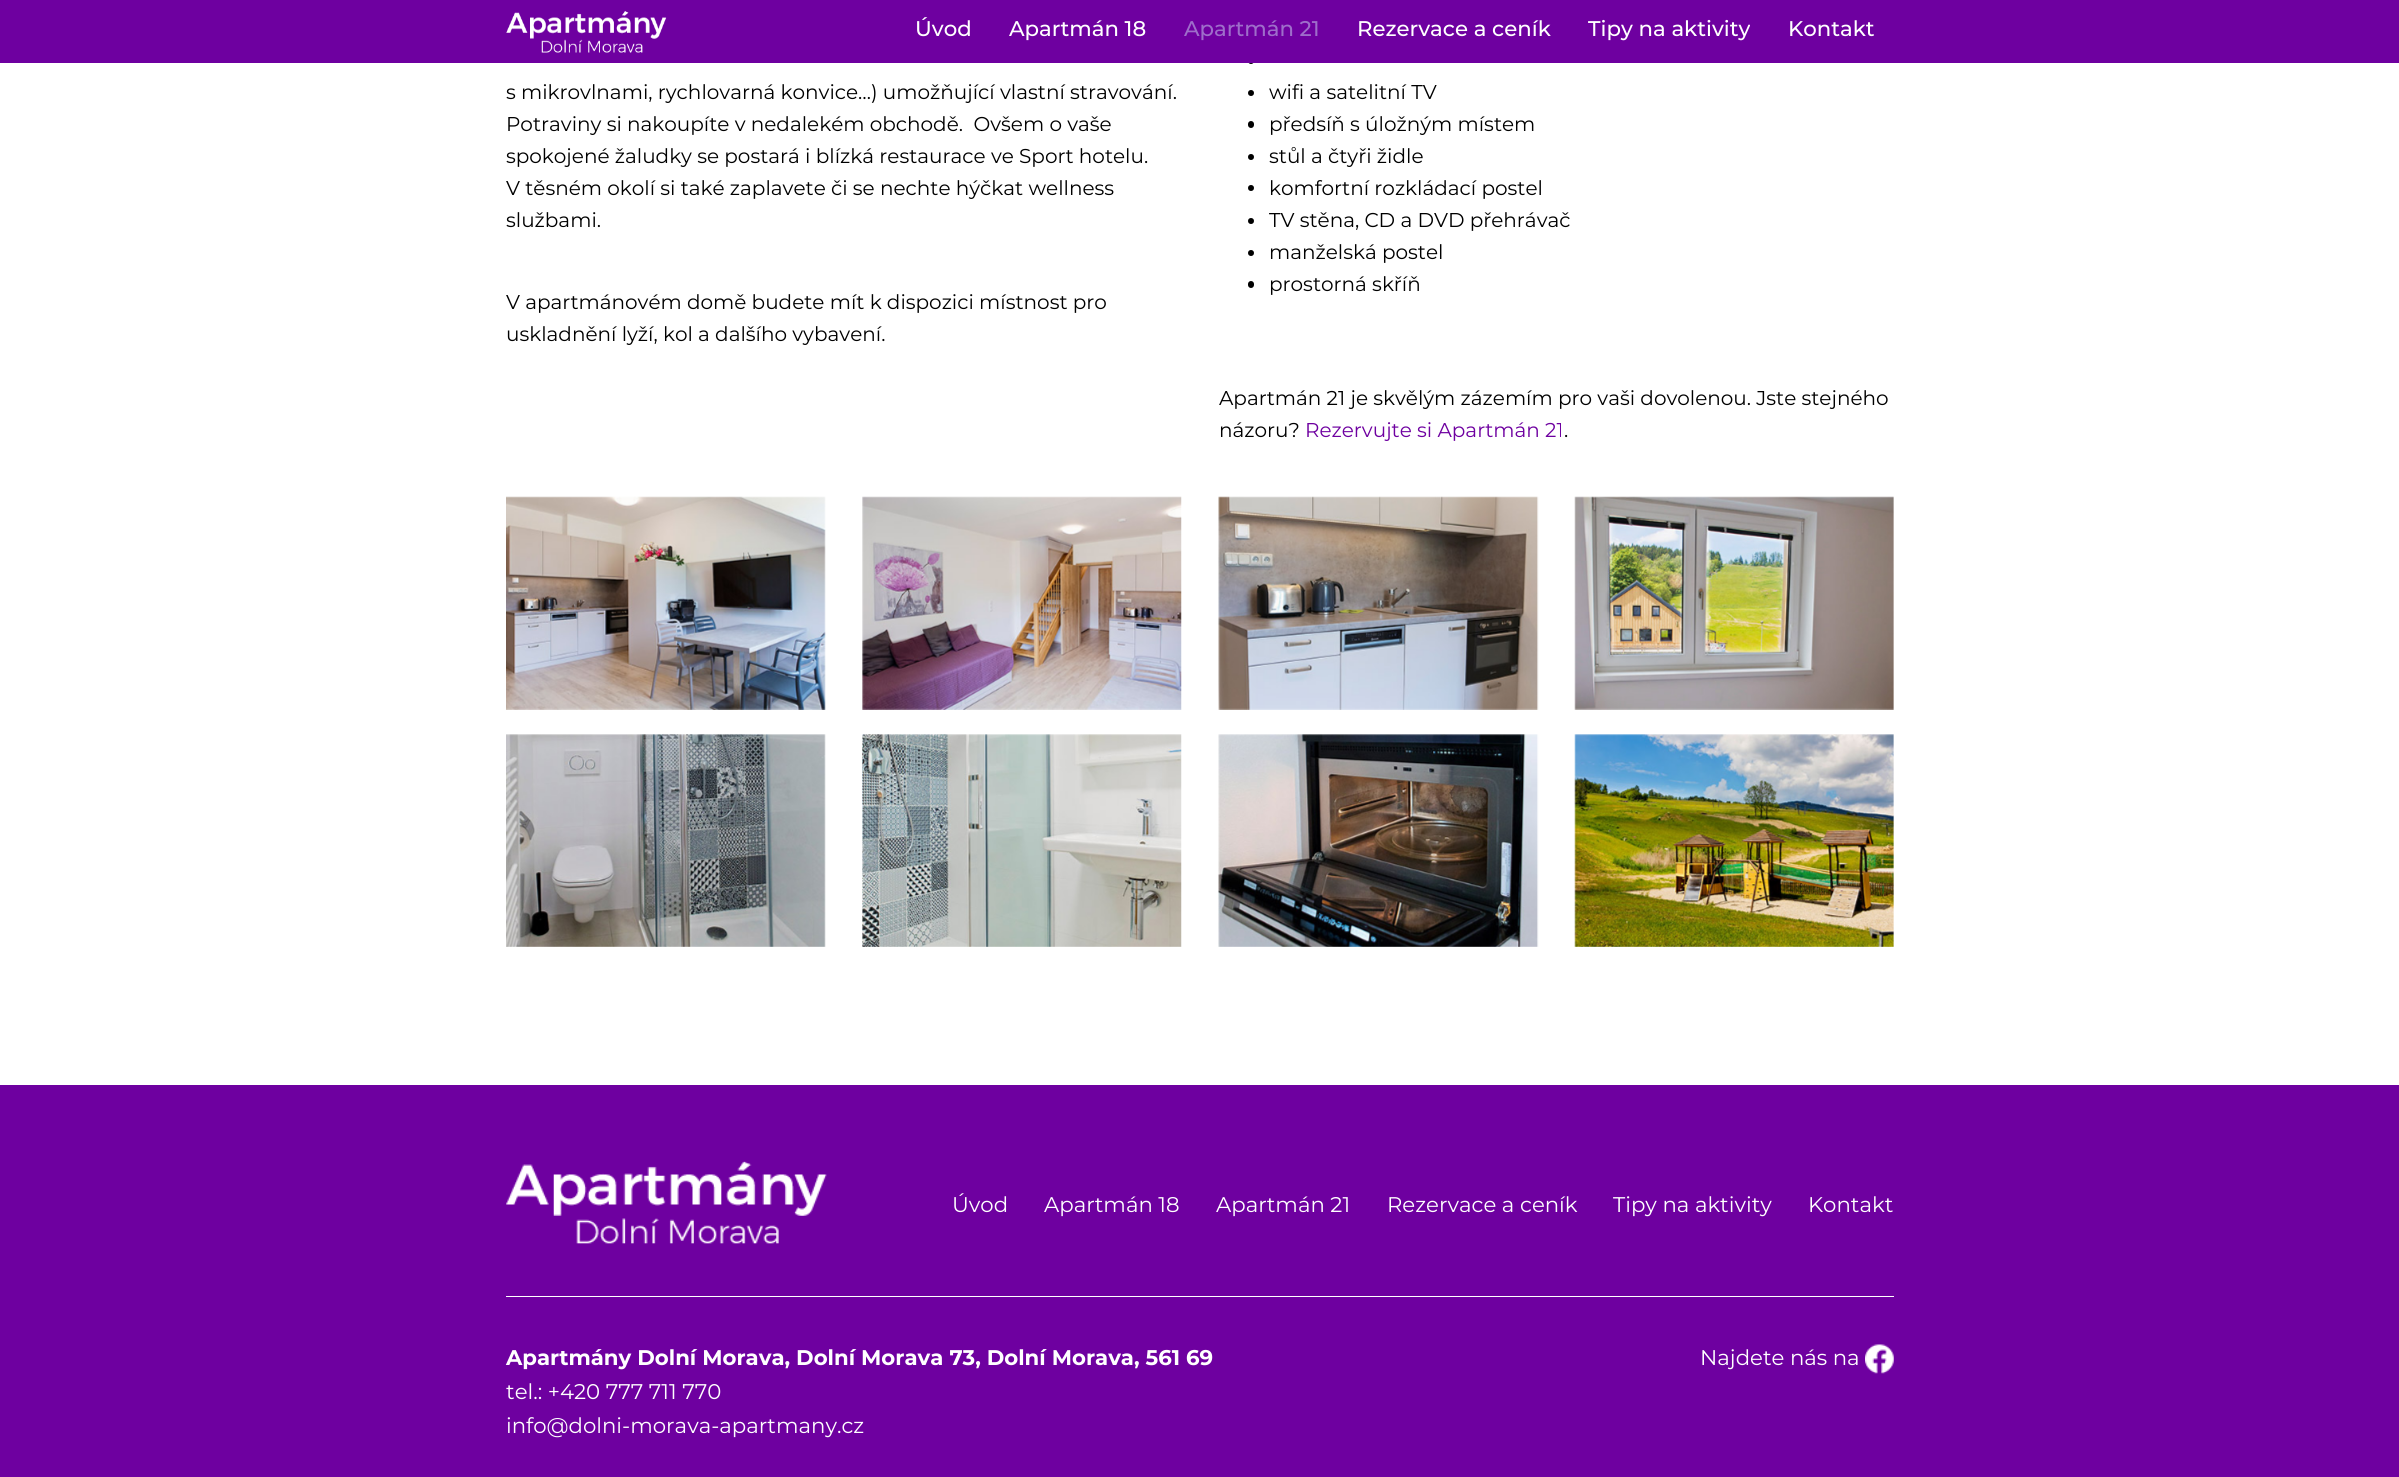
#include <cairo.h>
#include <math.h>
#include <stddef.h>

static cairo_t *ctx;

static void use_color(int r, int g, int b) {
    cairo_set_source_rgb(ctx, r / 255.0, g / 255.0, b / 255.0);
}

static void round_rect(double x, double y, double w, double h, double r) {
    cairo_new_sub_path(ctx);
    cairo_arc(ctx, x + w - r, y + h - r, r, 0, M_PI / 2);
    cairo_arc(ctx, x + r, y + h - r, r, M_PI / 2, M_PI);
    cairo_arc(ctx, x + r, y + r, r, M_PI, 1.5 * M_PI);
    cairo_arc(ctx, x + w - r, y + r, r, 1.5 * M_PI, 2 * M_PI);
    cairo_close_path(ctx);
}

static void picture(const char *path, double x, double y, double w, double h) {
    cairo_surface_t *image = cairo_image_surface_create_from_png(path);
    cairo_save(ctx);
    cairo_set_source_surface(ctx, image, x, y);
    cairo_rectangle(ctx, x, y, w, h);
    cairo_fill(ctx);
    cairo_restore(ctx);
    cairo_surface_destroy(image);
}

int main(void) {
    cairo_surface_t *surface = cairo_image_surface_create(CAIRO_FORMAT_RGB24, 2399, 1477);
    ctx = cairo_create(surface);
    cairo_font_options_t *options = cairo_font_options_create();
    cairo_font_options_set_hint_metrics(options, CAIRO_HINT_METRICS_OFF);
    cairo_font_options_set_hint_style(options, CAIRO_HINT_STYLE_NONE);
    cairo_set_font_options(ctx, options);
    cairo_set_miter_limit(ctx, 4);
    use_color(255, 255, 255);
    cairo_paint(ctx);
    use_color(0, 0, 0);
    cairo_arc(ctx, 1251, 61, 3, 0, 2 * M_PI);
    cairo_fill(ctx);
    use_color(110, 0, 160);
    cairo_rectangle(ctx, 0, 0, 2399, 63);
    cairo_fill(ctx);
    picture("img1.png", 506, 11, 161, 42);
    cairo_select_font_face(ctx, "Montserrat Medium", CAIRO_FONT_SLANT_NORMAL, CAIRO_FONT_WEIGHT_NORMAL);
    cairo_set_font_size(ctx, 21.25);
    use_color(255, 255, 255);
    cairo_move_to(ctx, 915, 36);
    cairo_show_text(ctx, "Úvod");
    cairo_move_to(ctx, 1009, 36);
    cairo_show_text(ctx, "Apartmán 18");
    use_color(158, 110, 202);
    cairo_move_to(ctx, 1184, 36);
    cairo_show_text(ctx, "Apartmán 21");
    use_color(255, 255, 255);
    cairo_move_to(ctx, 1357, 36);
    cairo_show_text(ctx, "Rezervace a ceník");
    cairo_move_to(ctx, 1588, 36);
    cairo_show_text(ctx, "Tipy na aktivity");
    cairo_move_to(ctx, 1788, 36);
    cairo_show_text(ctx, "Kontakt");
    cairo_select_font_face(ctx, "Montserrat", CAIRO_FONT_SLANT_NORMAL, CAIRO_FONT_WEIGHT_NORMAL);
    cairo_set_font_size(ctx, 20);
    use_color(0, 0, 0);
    cairo_move_to(ctx, 506, 99);
    cairo_show_text(ctx, "s mikrovlnami, rychlovarná konvice…) umožňující vlastní stravování.");
    cairo_move_to(ctx, 506, 131);
    cairo_show_text(ctx, "Potraviny si nakoupíte v nedalekém obchodě.  Ovšem o vaše");
    cairo_move_to(ctx, 506, 163);
    cairo_show_text(ctx, "spokojené žaludky se postará i blízká restaurace ve Sport hotelu.");
    cairo_move_to(ctx, 506, 195);
    cairo_show_text(ctx, "V těsném okolí si také zaplavete či se nechte hýčkat wellness");
    cairo_move_to(ctx, 506, 227);
    cairo_show_text(ctx, "službami.");
    cairo_move_to(ctx, 506, 309);
    cairo_show_text(ctx, "V apartmánovém domě budete mít k dispozici místnost pro");
    cairo_move_to(ctx, 506, 341);
    cairo_show_text(ctx, "uskladnění lyží, kol a dalšího vybavení.");
    cairo_new_path(ctx);
    cairo_arc(ctx, 1251, 93, 3, 0, 2 * M_PI);
    cairo_fill(ctx);
    cairo_move_to(ctx, 1269, 99);
    cairo_show_text(ctx, "wifi a satelitní TV");
    round_rect(1248, 121, 6, 7, 3);
    cairo_fill(ctx);
    cairo_move_to(ctx, 1269, 131);
    cairo_show_text(ctx, "předsíň s úložným místem");
    cairo_new_path(ctx);
    cairo_arc(ctx, 1251, 157, 3, 0, 2 * M_PI);
    cairo_fill(ctx);
    cairo_move_to(ctx, 1269, 163);
    cairo_show_text(ctx, "stůl a čtyři židle");
    cairo_new_path(ctx);
    cairo_arc(ctx, 1251, 188, 3, 0, 2 * M_PI);
    cairo_fill(ctx);
    cairo_move_to(ctx, 1269, 195);
    cairo_show_text(ctx, "komfortní rozkládací postel");
    cairo_new_path(ctx);
    cairo_arc(ctx, 1251, 221, 3, 0, 2 * M_PI);
    cairo_fill(ctx);
    cairo_move_to(ctx, 1269, 227);
    cairo_show_text(ctx, "TV stěna, CD a DVD přehrávač");
    cairo_new_path(ctx);
    cairo_arc(ctx, 1251, 253, 3, 0, 2 * M_PI);
    cairo_fill(ctx);
    cairo_move_to(ctx, 1269, 259);
    cairo_show_text(ctx, "manželská postel");
    round_rect(1248, 281, 6, 7, 3);
    cairo_fill(ctx);
    cairo_move_to(ctx, 1269, 291);
    cairo_show_text(ctx, "prostorná skříň");
    cairo_move_to(ctx, 1219, 405);
    cairo_show_text(ctx, "Apartmán 21 je skvělým zázemím pro vaši dovolenou. Jste stejného");
    cairo_move_to(ctx, 1219, 437);
    cairo_show_text(ctx, "názoru?");
    use_color(110, 0, 160);
    cairo_move_to(ctx, 1305, 437);
    cairo_show_text(ctx, "Rezervujte si Apartmán 21");
    use_color(0, 0, 0);
    cairo_move_to(ctx, 1564, 437);
    cairo_show_text(ctx, ".");
    picture("img2.png", 506, 496, 320, 214);
    picture("img3.png", 862, 496, 320, 214);
    picture("img4.png", 1218, 496, 321, 214);
    picture("img5.png", 1574, 496, 320, 214);
    picture("img6.png", 506, 734, 320, 213);
    picture("img7.png", 862, 734, 320, 213);
    picture("img8.png", 1218, 734, 321, 213);
    picture("img9.png", 1574, 734, 320, 213);
    use_color(110, 0, 160);
    cairo_rectangle(ctx, 0, 1085, 2399, 392);
    cairo_fill(ctx);
    picture("img10.png", 506, 1161, 321, 83);
    cairo_set_font_size(ctx, 21.25);
    use_color(255, 255, 255);
    cairo_move_to(ctx, 952, 1212);
    cairo_show_text(ctx, "Úvod");
    cairo_move_to(ctx, 1044, 1212);
    cairo_show_text(ctx, "Apartmán 18");
    cairo_move_to(ctx, 1216, 1212);
    cairo_show_text(ctx, "Apartmán 21");
    cairo_move_to(ctx, 1387, 1212);
    cairo_show_text(ctx, "Rezervace a ceník");
    cairo_move_to(ctx, 1613, 1212);
    cairo_show_text(ctx, "Tipy na aktivity");
    cairo_move_to(ctx, 1808, 1212);
    cairo_show_text(ctx, "Kontakt");
    cairo_rectangle(ctx, 506, 1296, 1388, 1);
    cairo_fill(ctx);
    cairo_select_font_face(ctx, "Montserrat", CAIRO_FONT_SLANT_NORMAL, CAIRO_FONT_WEIGHT_BOLD);
    cairo_move_to(ctx, 506, 1365);
    cairo_show_text(ctx, "Apartmány Dolní Morava, Dolní Morava 73, Dolní Morava, 561 69");
    cairo_select_font_face(ctx, "Montserrat", CAIRO_FONT_SLANT_NORMAL, CAIRO_FONT_WEIGHT_NORMAL);
    cairo_move_to(ctx, 506, 1399);
    cairo_show_text(ctx, "tel.: +420 777 711 770");
    cairo_move_to(ctx, 506, 1433);
    cairo_show_text(ctx, "info@dolni-morava-apartmany.cz");
    cairo_move_to(ctx, 1700, 1365);
    cairo_show_text(ctx, "Najdete nás na");
    picture("img11.png", 1865, 1344, 29, 30);
    cairo_surface_write_to_png(surface, "result.png");
    cairo_font_options_destroy(options);
    cairo_destroy(ctx);
    cairo_surface_destroy(surface);
    return 0;
}
